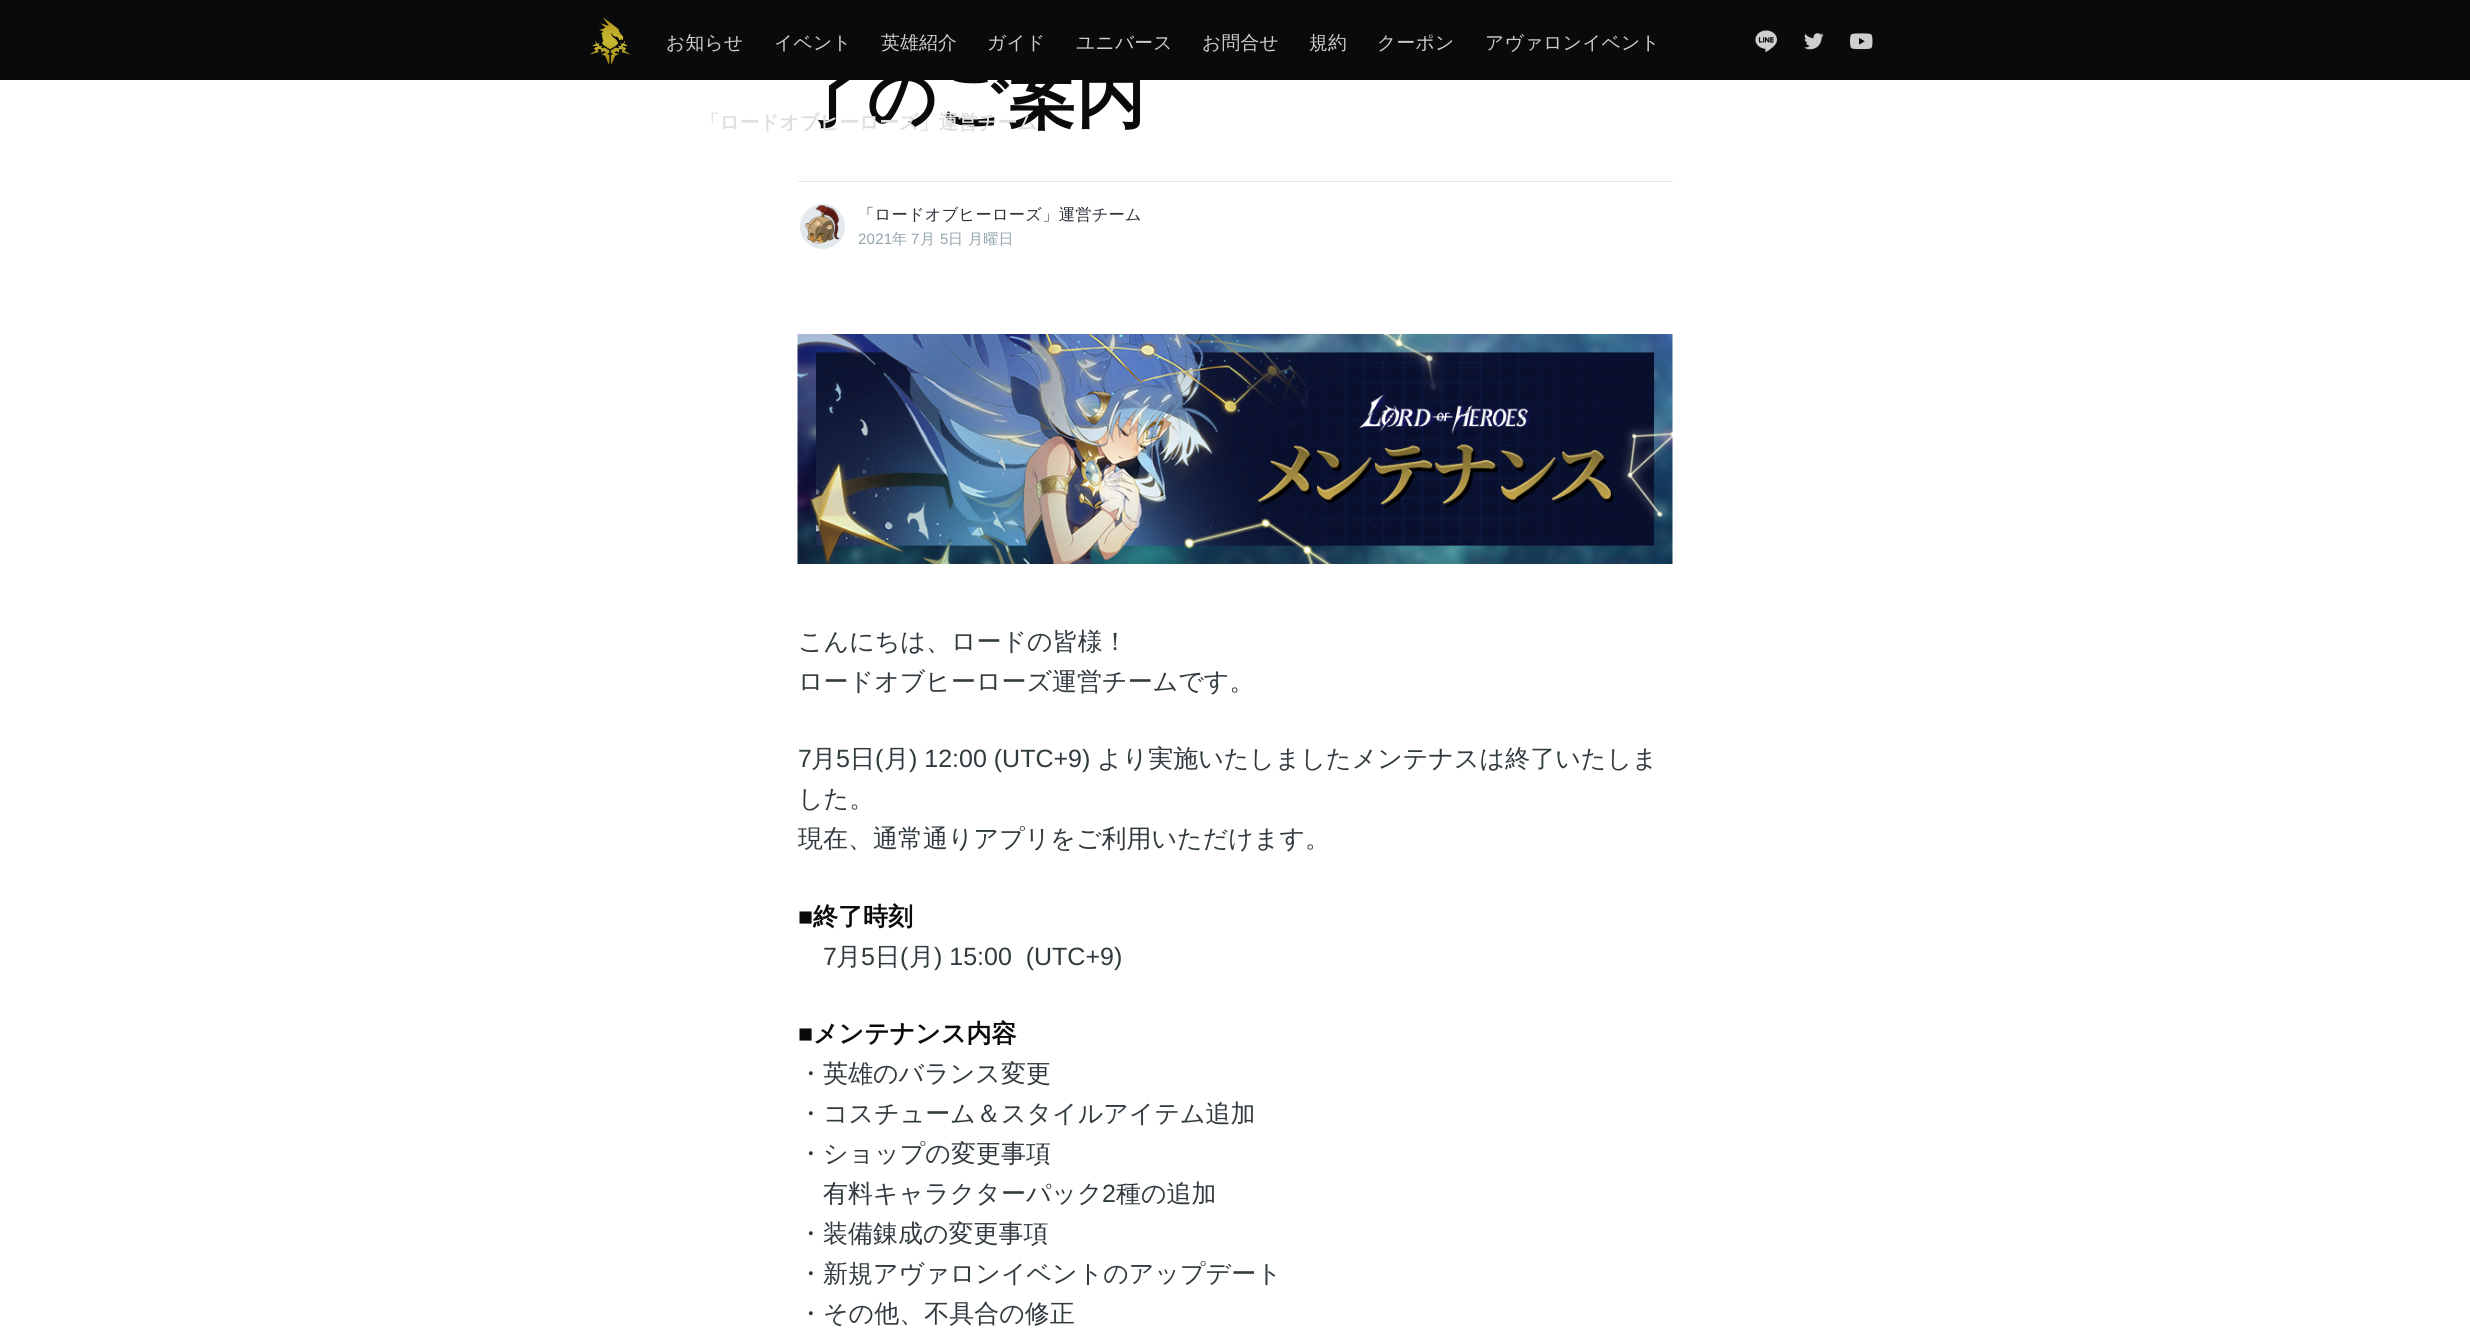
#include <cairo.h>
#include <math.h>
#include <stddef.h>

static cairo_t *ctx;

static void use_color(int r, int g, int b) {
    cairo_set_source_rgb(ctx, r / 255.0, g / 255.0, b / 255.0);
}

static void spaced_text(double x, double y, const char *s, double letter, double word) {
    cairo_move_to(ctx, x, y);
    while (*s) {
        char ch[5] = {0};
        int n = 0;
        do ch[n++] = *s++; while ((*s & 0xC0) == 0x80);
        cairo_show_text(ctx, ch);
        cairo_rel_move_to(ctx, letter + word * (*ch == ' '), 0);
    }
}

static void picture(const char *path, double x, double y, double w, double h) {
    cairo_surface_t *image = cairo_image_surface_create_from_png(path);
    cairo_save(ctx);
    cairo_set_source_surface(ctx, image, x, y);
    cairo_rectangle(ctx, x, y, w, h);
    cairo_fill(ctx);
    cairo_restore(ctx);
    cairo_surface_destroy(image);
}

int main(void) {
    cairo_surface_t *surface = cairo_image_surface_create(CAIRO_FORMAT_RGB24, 2470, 1331);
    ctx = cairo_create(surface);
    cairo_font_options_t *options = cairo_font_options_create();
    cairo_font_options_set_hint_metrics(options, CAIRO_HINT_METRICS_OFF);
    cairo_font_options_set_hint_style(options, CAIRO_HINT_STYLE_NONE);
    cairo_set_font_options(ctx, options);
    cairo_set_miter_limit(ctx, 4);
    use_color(255, 255, 255);
    cairo_paint(ctx);
    use_color(9, 10, 11);
    cairo_rectangle(ctx, 0, 0, 2470, 80);
    cairo_fill(ctx);
    picture("img1.png", 589, 18, 42, 47);
    cairo_select_font_face(ctx, "WenQuanYi Zen Hei Medium", CAIRO_FONT_SLANT_NORMAL, CAIRO_FONT_WEIGHT_NORMAL);
    cairo_set_font_size(ctx, 18.75);
    use_color(206, 206, 206);
    spaced_text(666, 49, "お知らせ", 0.25, 0);
    spaced_text(774, 49, "イベント", 0.25, 0);
    spaced_text(881, 49, "英雄紹介", 0.25, 0);
    spaced_text(987, 49, "ガイド", 0.25, 0);
    spaced_text(1076, 49, "ユニバース", 0.25, 0);
    spaced_text(1202, 49, "お問合せ", 0.25, 0);
    spaced_text(1309, 49, "規約", 0.25, 0);
    spaced_text(1377, 49, "クーポン", 0.25, 0);
    spaced_text(1485, 49, "アヴァロンイベント", 0.25, 0);
    picture("img2.png", 1755, 30, 22, 22);
    picture("img3.png", 1804, 33, 20, 17);
    picture("img4.png", 1850, 33, 23, 17);
    cairo_select_font_face(ctx, "WenQuanYi Zen Hei", CAIRO_FONT_SLANT_NORMAL, CAIRO_FONT_WEIGHT_BOLD);
    cairo_set_font_size(ctx, 68.75);
    use_color(9, 10, 11);
    cairo_move_to(ctx, 798, 121);
    cairo_show_text(ctx, "了のご案内");
    use_color(227, 233, 237);
    cairo_rectangle(ctx, 798, 181, 875, 1);
    cairo_fill(ctx);
    cairo_set_font_size(ctx, 19.6);
    use_color(223, 223, 223);
    cairo_move_to(ctx, 700, 129);
    cairo_show_text(ctx, "「ロードオブヒーローズ」運営チーム");
    use_color(227, 233, 237);
    cairo_new_path(ctx);
    cairo_arc(ctx, 822.5, 226.5, 22.5, 0, 2 * M_PI);
    cairo_fill(ctx);
    picture("img5.png", 805, 205, 35, 39);
    cairo_select_font_face(ctx, "WenQuanYi Zen Hei Medium", CAIRO_FONT_SLANT_NORMAL, CAIRO_FONT_WEIGHT_NORMAL);
    cairo_set_font_size(ctx, 16.25);
    use_color(43, 47, 54);
    spaced_text(858, 220, "「ロードオブヒーローズ」運営チーム", 0.25, 0);
    cairo_select_font_face(ctx, "Liberation Sans", CAIRO_FONT_SLANT_NORMAL, CAIRO_FONT_WEIGHT_NORMAL);
    cairo_set_font_size(ctx, 15);
    use_color(146, 163, 171);
    spaced_text(858, 244, "2021", 0.25, 0);
    cairo_select_font_face(ctx, "WenQuanYi Zen Hei Medium", CAIRO_FONT_SLANT_NORMAL, CAIRO_FONT_WEIGHT_NORMAL);
    spaced_text(892, 244, "年", 0.25, 0);
    cairo_select_font_face(ctx, "Liberation Sans", CAIRO_FONT_SLANT_NORMAL, CAIRO_FONT_WEIGHT_NORMAL);
    spaced_text(911, 244, "7", 0.25, 0);
    cairo_select_font_face(ctx, "WenQuanYi Zen Hei Medium", CAIRO_FONT_SLANT_NORMAL, CAIRO_FONT_WEIGHT_NORMAL);
    spaced_text(920, 244, "月", 0.25, 0);
    cairo_select_font_face(ctx, "Liberation Sans", CAIRO_FONT_SLANT_NORMAL, CAIRO_FONT_WEIGHT_NORMAL);
    spaced_text(940, 244, "5", 0.25, 0);
    cairo_select_font_face(ctx, "WenQuanYi Zen Hei Medium", CAIRO_FONT_SLANT_NORMAL, CAIRO_FONT_WEIGHT_NORMAL);
    spaced_text(948, 244, "日 月曜日", 0.25, 0);
    picture("img6.png", 797, 334, 876, 230);
    cairo_set_font_size(ctx, 25);
    use_color(49, 59, 63);
    cairo_move_to(ctx, 798, 650);
    cairo_show_text(ctx, "こんにちは、ロードの皆様！");
    cairo_move_to(ctx, 798, 690);
    cairo_show_text(ctx, "ロードオブヒーローズ運営チームです。");
    cairo_select_font_face(ctx, "Liberation Sans", CAIRO_FONT_SLANT_NORMAL, CAIRO_FONT_WEIGHT_NORMAL);
    cairo_move_to(ctx, 798, 767);
    cairo_show_text(ctx, "7");
    cairo_select_font_face(ctx, "WenQuanYi Zen Hei Medium", CAIRO_FONT_SLANT_NORMAL, CAIRO_FONT_WEIGHT_NORMAL);
    cairo_move_to(ctx, 811, 767);
    cairo_show_text(ctx, "月");
    cairo_select_font_face(ctx, "Liberation Sans", CAIRO_FONT_SLANT_NORMAL, CAIRO_FONT_WEIGHT_NORMAL);
    cairo_move_to(ctx, 836, 767);
    cairo_show_text(ctx, "5");
    cairo_select_font_face(ctx, "WenQuanYi Zen Hei Medium", CAIRO_FONT_SLANT_NORMAL, CAIRO_FONT_WEIGHT_NORMAL);
    cairo_move_to(ctx, 850, 767);
    cairo_show_text(ctx, "日");
    cairo_select_font_face(ctx, "Liberation Sans", CAIRO_FONT_SLANT_NORMAL, CAIRO_FONT_WEIGHT_NORMAL);
    cairo_move_to(ctx, 875, 767);
    cairo_show_text(ctx, "(");
    cairo_select_font_face(ctx, "WenQuanYi Zen Hei Medium", CAIRO_FONT_SLANT_NORMAL, CAIRO_FONT_WEIGHT_NORMAL);
    cairo_move_to(ctx, 884, 767);
    cairo_show_text(ctx, "月");
    cairo_select_font_face(ctx, "Liberation Sans", CAIRO_FONT_SLANT_NORMAL, CAIRO_FONT_WEIGHT_NORMAL);
    cairo_move_to(ctx, 909, 767);
    cairo_show_text(ctx, ") 12:00 (UTC+9)");
    cairo_select_font_face(ctx, "WenQuanYi Zen Hei Medium", CAIRO_FONT_SLANT_NORMAL, CAIRO_FONT_WEIGHT_NORMAL);
    cairo_move_to(ctx, 1097, 767);
    cairo_show_text(ctx, "より実施いたしましたメンテナスは終了いたしま");
    cairo_move_to(ctx, 798, 807);
    cairo_show_text(ctx, "した。");
    cairo_move_to(ctx, 798, 847);
    cairo_show_text(ctx, "現在、通常通りアプリをご利用いただけます。");
    cairo_select_font_face(ctx, "Liberation Sans", CAIRO_FONT_SLANT_NORMAL, CAIRO_FONT_WEIGHT_BOLD);
    use_color(9, 10, 11);
    cairo_move_to(ctx, 798, 925);
    cairo_show_text(ctx, "■");
    cairo_select_font_face(ctx, "WenQuanYi Zen Hei", CAIRO_FONT_SLANT_NORMAL, CAIRO_FONT_WEIGHT_BOLD);
    cairo_move_to(ctx, 813, 925);
    cairo_show_text(ctx, "終了時刻");
    cairo_select_font_face(ctx, "Liberation Sans", CAIRO_FONT_SLANT_NORMAL, CAIRO_FONT_WEIGHT_NORMAL);
    use_color(49, 59, 63);
    cairo_move_to(ctx, 823, 965);
    cairo_show_text(ctx, "7");
    cairo_select_font_face(ctx, "WenQuanYi Zen Hei Medium", CAIRO_FONT_SLANT_NORMAL, CAIRO_FONT_WEIGHT_NORMAL);
    cairo_move_to(ctx, 836, 965);
    cairo_show_text(ctx, "月");
    cairo_select_font_face(ctx, "Liberation Sans", CAIRO_FONT_SLANT_NORMAL, CAIRO_FONT_WEIGHT_NORMAL);
    cairo_move_to(ctx, 861, 965);
    cairo_show_text(ctx, "5");
    cairo_select_font_face(ctx, "WenQuanYi Zen Hei Medium", CAIRO_FONT_SLANT_NORMAL, CAIRO_FONT_WEIGHT_NORMAL);
    cairo_move_to(ctx, 875, 965);
    cairo_show_text(ctx, "日");
    cairo_select_font_face(ctx, "Liberation Sans", CAIRO_FONT_SLANT_NORMAL, CAIRO_FONT_WEIGHT_NORMAL);
    cairo_move_to(ctx, 900, 965);
    cairo_show_text(ctx, "(");
    cairo_select_font_face(ctx, "WenQuanYi Zen Hei Medium", CAIRO_FONT_SLANT_NORMAL, CAIRO_FONT_WEIGHT_NORMAL);
    cairo_move_to(ctx, 909, 965);
    cairo_show_text(ctx, "月");
    cairo_select_font_face(ctx, "Liberation Sans", CAIRO_FONT_SLANT_NORMAL, CAIRO_FONT_WEIGHT_NORMAL);
    cairo_move_to(ctx, 934, 965);
    cairo_show_text(ctx, ") 15:00  (UTC+9)");
    cairo_select_font_face(ctx, "Liberation Sans", CAIRO_FONT_SLANT_NORMAL, CAIRO_FONT_WEIGHT_BOLD);
    use_color(9, 10, 11);
    cairo_move_to(ctx, 798, 1042);
    cairo_show_text(ctx, "■");
    cairo_select_font_face(ctx, "WenQuanYi Zen Hei", CAIRO_FONT_SLANT_NORMAL, CAIRO_FONT_WEIGHT_BOLD);
    cairo_move_to(ctx, 813, 1042);
    cairo_show_text(ctx, "メンテナンス内容");
    cairo_select_font_face(ctx, "WenQuanYi Zen Hei Medium", CAIRO_FONT_SLANT_NORMAL, CAIRO_FONT_WEIGHT_NORMAL);
    use_color(49, 59, 63);
    cairo_move_to(ctx, 798, 1082);
    cairo_show_text(ctx, "・英雄のバランス変更");
    cairo_move_to(ctx, 798, 1122);
    cairo_show_text(ctx, "・コスチューム＆スタイルアイテム追加");
    cairo_move_to(ctx, 798, 1162);
    cairo_show_text(ctx, "・ショップの変更事項");
    cairo_move_to(ctx, 823, 1202);
    cairo_show_text(ctx, "有料キャラクターパック");
    cairo_select_font_face(ctx, "Liberation Sans", CAIRO_FONT_SLANT_NORMAL, CAIRO_FONT_WEIGHT_NORMAL);
    cairo_move_to(ctx, 1102, 1202);
    cairo_show_text(ctx, "2");
    cairo_select_font_face(ctx, "WenQuanYi Zen Hei Medium", CAIRO_FONT_SLANT_NORMAL, CAIRO_FONT_WEIGHT_NORMAL);
    cairo_move_to(ctx, 1116, 1202);
    cairo_show_text(ctx, "種の追加");
    cairo_move_to(ctx, 798, 1242);
    cairo_show_text(ctx, "・装備錬成の変更事項");
    cairo_move_to(ctx, 798, 1282);
    cairo_show_text(ctx, "・新規アヴァロンイベントのアップデート");
    cairo_move_to(ctx, 798, 1322);
    cairo_show_text(ctx, "・その他、不具合の修正");
    cairo_surface_write_to_png(surface, "result.png");
    cairo_font_options_destroy(options);
    cairo_destroy(ctx);
    cairo_surface_destroy(surface);
    return 0;
}
